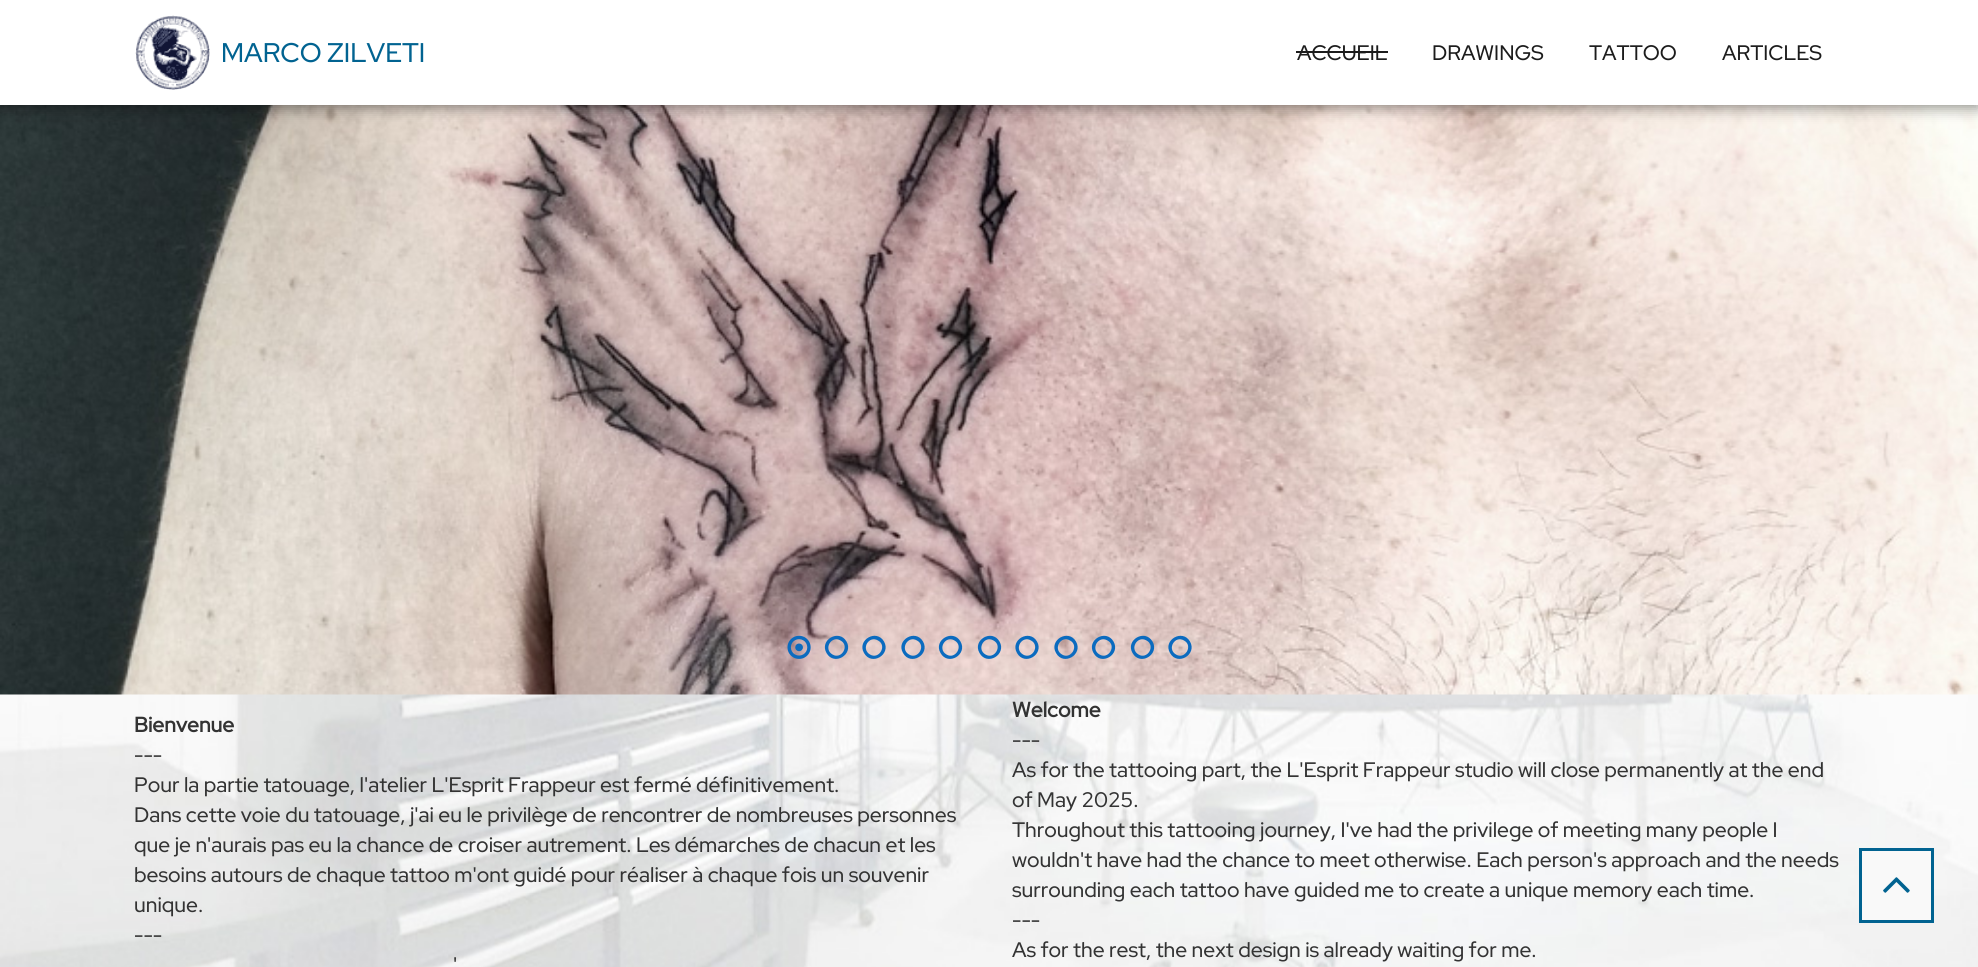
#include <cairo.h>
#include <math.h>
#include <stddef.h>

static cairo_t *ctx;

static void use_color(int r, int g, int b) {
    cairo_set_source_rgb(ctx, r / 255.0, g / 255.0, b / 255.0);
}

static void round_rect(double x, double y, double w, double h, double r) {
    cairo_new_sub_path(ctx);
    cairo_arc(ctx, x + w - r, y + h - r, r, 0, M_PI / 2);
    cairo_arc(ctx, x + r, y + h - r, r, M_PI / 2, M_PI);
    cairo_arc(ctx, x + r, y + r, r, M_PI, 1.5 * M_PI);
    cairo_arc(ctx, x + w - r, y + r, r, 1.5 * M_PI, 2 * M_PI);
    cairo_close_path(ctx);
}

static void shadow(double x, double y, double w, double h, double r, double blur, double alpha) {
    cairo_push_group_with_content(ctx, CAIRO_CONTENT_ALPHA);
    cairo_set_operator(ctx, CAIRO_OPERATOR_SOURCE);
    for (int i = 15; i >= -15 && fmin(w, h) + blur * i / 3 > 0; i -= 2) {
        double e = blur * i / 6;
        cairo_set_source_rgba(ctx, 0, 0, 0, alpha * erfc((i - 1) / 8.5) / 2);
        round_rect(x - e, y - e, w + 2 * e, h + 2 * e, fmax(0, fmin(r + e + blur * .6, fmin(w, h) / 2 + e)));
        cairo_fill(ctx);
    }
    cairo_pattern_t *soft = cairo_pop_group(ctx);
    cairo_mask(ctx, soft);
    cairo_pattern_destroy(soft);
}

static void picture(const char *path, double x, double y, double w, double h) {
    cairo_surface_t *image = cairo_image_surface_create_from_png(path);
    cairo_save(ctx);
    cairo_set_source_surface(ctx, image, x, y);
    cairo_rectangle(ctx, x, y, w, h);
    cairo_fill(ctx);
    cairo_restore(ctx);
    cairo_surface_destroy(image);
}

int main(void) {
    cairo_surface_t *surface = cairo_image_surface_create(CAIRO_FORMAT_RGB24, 1978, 967);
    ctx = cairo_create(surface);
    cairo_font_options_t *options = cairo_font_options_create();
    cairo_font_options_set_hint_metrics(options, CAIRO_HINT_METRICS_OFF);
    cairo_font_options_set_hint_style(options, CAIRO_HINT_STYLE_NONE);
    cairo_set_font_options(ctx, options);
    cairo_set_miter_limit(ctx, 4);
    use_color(255, 255, 255);
    cairo_paint(ctx);
    picture("img5.png", 0, 694, 1978, 273);
    picture("img2.png", 0, 105, 1978, 590);
    use_color(0, 0, 0);
    shadow(0, 6, 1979, 105, 0, 6, 0.28);
    shadow(0, 0, 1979, 105, 0, 3, 0.14);
    use_color(255, 255, 255);
    cairo_rectangle(ctx, 0, 0, 1978, 105);
    cairo_fill(ctx);
    picture("img1.png", 135, 15, 75, 75);
    cairo_select_font_face(ctx, "Red Hat Display Medium", CAIRO_FONT_SLANT_NORMAL, CAIRO_FONT_WEIGHT_NORMAL);
    cairo_set_font_size(ctx, 27);
    use_color(1, 99, 145);
    cairo_move_to(ctx, 221, 62);
    cairo_show_text(ctx, "MARCO ZILVETI");
    cairo_set_font_size(ctx, 21);
    use_color(28, 28, 28);
    cairo_move_to(ctx, 1297, 60);
    cairo_show_text(ctx, "ACCUEIL");
    cairo_rectangle(ctx, 1296, 51, 92, 2);
    cairo_fill(ctx);
    cairo_move_to(ctx, 1432, 60);
    cairo_show_text(ctx, "DRAWINGS");
    cairo_move_to(ctx, 1589, 60);
    cairo_show_text(ctx, "TATTOO");
    cairo_move_to(ctx, 1722, 60);
    cairo_show_text(ctx, "ARTICLES");
    picture("img3.png", 787, 635, 24, 24);
    use_color(11, 107, 191);
    cairo_new_path(ctx);
    cairo_move_to(ctx, 840.5, 640.5);
    cairo_curve_to(ctx, 831.5, 635, 823, 649, 832.5, 654.5);
    cairo_curve_to(ctx, 841.5, 660, 850, 645.5, 840.5, 640.5);
    cairo_close_path(ctx);
    cairo_move_to(ctx, 846.5, 641.5);
    cairo_curve_to(ctx, 854, 654.5, 834, 666.5, 826.5, 653);
    cairo_curve_to(ctx, 819, 640, 839, 628.5, 846.5, 641.5);
    cairo_close_path(ctx);
    cairo_move_to(ctx, 878, 640.5);
    cairo_curve_to(ctx, 869, 635, 860.5, 649, 870, 654.5);
    cairo_curve_to(ctx, 879, 660, 887.5, 645.5, 878, 640.5);
    cairo_close_path(ctx);
    cairo_move_to(ctx, 884, 641.5);
    cairo_curve_to(ctx, 891.5, 654.5, 871.5, 666.5, 864, 653);
    cairo_curve_to(ctx, 856.5, 640, 876.5, 628.5, 884, 641.5);
    cairo_close_path(ctx);
    cairo_fill(ctx);
    cairo_new_path(ctx);
    cairo_move_to(ctx, 917, 640.5);
    cairo_curve_to(ctx, 908, 635, 899.5, 649, 909, 654.5);
    cairo_curve_to(ctx, 918, 660, 926.5, 645.5, 917, 640.5);
    cairo_close_path(ctx);
    cairo_move_to(ctx, 923, 641.5);
    cairo_curve_to(ctx, 930.5, 654.5, 910.5, 666.5, 903, 653);
    cairo_curve_to(ctx, 895.5, 640, 915.5, 628.5, 923, 641.5);
    cairo_close_path(ctx);
    cairo_move_to(ctx, 954.5, 640.5);
    cairo_curve_to(ctx, 945.5, 635, 937, 649, 946.5, 654.5);
    cairo_curve_to(ctx, 955.5, 660, 964, 645.5, 954.5, 640.5);
    cairo_close_path(ctx);
    cairo_move_to(ctx, 960.5, 641.5);
    cairo_curve_to(ctx, 968, 654.5, 948, 666.5, 940.5, 653);
    cairo_curve_to(ctx, 933, 640, 953, 628.5, 960.5, 641.5);
    cairo_close_path(ctx);
    cairo_fill(ctx);
    cairo_new_path(ctx);
    cairo_move_to(ctx, 993.5, 640.5);
    cairo_curve_to(ctx, 984.5, 635, 976, 649, 985.5, 654.5);
    cairo_curve_to(ctx, 994.5, 660, 1003, 645.5, 993.5, 640.5);
    cairo_close_path(ctx);
    cairo_move_to(ctx, 999.5, 641.5);
    cairo_curve_to(ctx, 1007, 654.5, 987, 666.5, 979.5, 653);
    cairo_curve_to(ctx, 972, 640, 992, 628.5, 999.5, 641.5);
    cairo_close_path(ctx);
    cairo_move_to(ctx, 1031, 640.5);
    cairo_curve_to(ctx, 1022, 635, 1013.5, 649, 1023, 654.5);
    cairo_curve_to(ctx, 1032, 660, 1040.5, 645.5, 1031, 640.5);
    cairo_close_path(ctx);
    cairo_move_to(ctx, 1037, 641.5);
    cairo_curve_to(ctx, 1044.5, 654.5, 1024.5, 666.5, 1017, 653);
    cairo_curve_to(ctx, 1009.5, 640, 1029.5, 628.5, 1037, 641.5);
    cairo_close_path(ctx);
    cairo_fill(ctx);
    cairo_new_path(ctx);
    cairo_move_to(ctx, 1070, 640.5);
    cairo_curve_to(ctx, 1061, 635, 1052.5, 649, 1062, 654.5);
    cairo_curve_to(ctx, 1071, 660, 1079.5, 645.5, 1070, 640.5);
    cairo_close_path(ctx);
    cairo_move_to(ctx, 1076, 641.5);
    cairo_curve_to(ctx, 1083.5, 654.5, 1063.5, 666.5, 1056, 653);
    cairo_curve_to(ctx, 1048.5, 640, 1068.5, 628.5, 1076, 641.5);
    cairo_close_path(ctx);
    cairo_move_to(ctx, 1107.5, 640.5);
    cairo_curve_to(ctx, 1098.5, 635, 1090, 649, 1099.5, 654.5);
    cairo_curve_to(ctx, 1108.5, 660, 1117, 645.5, 1107.5, 640.5);
    cairo_close_path(ctx);
    cairo_move_to(ctx, 1113.5, 641.5);
    cairo_curve_to(ctx, 1121, 654.5, 1101, 666.5, 1093.5, 653);
    cairo_curve_to(ctx, 1086, 640, 1106, 628.5, 1113.5, 641.5);
    cairo_close_path(ctx);
    cairo_fill(ctx);
    cairo_new_path(ctx);
    cairo_move_to(ctx, 1146.5, 640.5);
    cairo_curve_to(ctx, 1137.5, 635, 1129, 649, 1138.5, 654.5);
    cairo_curve_to(ctx, 1147.5, 660, 1156, 645.5, 1146.5, 640.5);
    cairo_close_path(ctx);
    cairo_move_to(ctx, 1152.5, 641.5);
    cairo_curve_to(ctx, 1160, 654.5, 1140, 666.5, 1132.5, 653);
    cairo_curve_to(ctx, 1125, 640, 1145, 628.5, 1152.5, 641.5);
    cairo_close_path(ctx);
    cairo_move_to(ctx, 1184, 640.5);
    cairo_curve_to(ctx, 1175, 635, 1166.5, 649, 1176, 654.5);
    cairo_curve_to(ctx, 1185, 660, 1193.5, 645.5, 1184, 640.5);
    cairo_close_path(ctx);
    cairo_move_to(ctx, 1190, 641.5);
    cairo_curve_to(ctx, 1197.5, 654.5, 1177.5, 666.5, 1170, 653);
    cairo_curve_to(ctx, 1162.5, 640, 1182.5, 628.5, 1190, 641.5);
    cairo_close_path(ctx);
    cairo_fill(ctx);
    cairo_select_font_face(ctx, "Red Hat Display", CAIRO_FONT_SLANT_NORMAL, CAIRO_FONT_WEIGHT_BOLD);
    use_color(51, 51, 51);
    cairo_move_to(ctx, 134, 732);
    cairo_show_text(ctx, "Bienvenue");
    cairo_select_font_face(ctx, "Red Hat Display Medium", CAIRO_FONT_SLANT_NORMAL, CAIRO_FONT_WEIGHT_NORMAL);
    cairo_move_to(ctx, 134, 762);
    cairo_show_text(ctx, "---");
    cairo_move_to(ctx, 134, 792);
    cairo_show_text(ctx, "Pour la partie tatouage, l'atelier L'Esprit Frappeur est fermé définitivement.");
    cairo_move_to(ctx, 134, 822);
    cairo_show_text(ctx, "Dans cette voie du tatouage, j'ai eu le privilège de rencontrer de nombreuses personnes");
    cairo_move_to(ctx, 134, 852);
    cairo_show_text(ctx, "que je n'aurais pas eu la chance de croiser autrement. Les démarches de chacun et les");
    cairo_move_to(ctx, 134, 882);
    cairo_show_text(ctx, "besoins autours de chaque tattoo m'ont guidé pour réaliser à chaque fois un souvenir");
    cairo_move_to(ctx, 134, 912);
    cairo_show_text(ctx, "unique.");
    cairo_move_to(ctx, 134, 942);
    cairo_show_text(ctx, "---");
    cairo_move_to(ctx, 453, 972);
    cairo_show_text(ctx, "'");
    cairo_select_font_face(ctx, "Red Hat Display", CAIRO_FONT_SLANT_NORMAL, CAIRO_FONT_WEIGHT_BOLD);
    cairo_move_to(ctx, 1012, 717);
    cairo_show_text(ctx, "Welcome");
    cairo_select_font_face(ctx, "Red Hat Display Medium", CAIRO_FONT_SLANT_NORMAL, CAIRO_FONT_WEIGHT_NORMAL);
    cairo_move_to(ctx, 1012, 747);
    cairo_show_text(ctx, "---");
    cairo_move_to(ctx, 1012, 777);
    cairo_show_text(ctx, "As for the tattooing part, the L'Esprit Frappeur studio will close permanently at the end");
    cairo_move_to(ctx, 1012, 807);
    cairo_show_text(ctx, "of May 2025.");
    cairo_move_to(ctx, 1012, 837);
    cairo_show_text(ctx, "Throughout this tattooing journey, I've had the privilege of meeting many people I");
    cairo_move_to(ctx, 1012, 867);
    cairo_show_text(ctx, "wouldn't have had the chance to meet otherwise. Each person's approach and the needs");
    cairo_move_to(ctx, 1012, 897);
    cairo_show_text(ctx, "surrounding each tattoo have guided me to create a unique memory each time.");
    cairo_move_to(ctx, 1012, 927);
    cairo_show_text(ctx, "---");
    cairo_move_to(ctx, 1012, 957);
    cairo_show_text(ctx, "As for the rest, the next design is already waiting for me.");
    use_color(249, 249, 249);
    cairo_rectangle(ctx, 1860.5, 849.5, 72, 72);
    cairo_fill_preserve(ctx);
    use_color(1, 99, 145);
    cairo_set_line_width(ctx, 3);
    cairo_stroke(ctx);
    picture("img4.png", 1883, 877, 27, 16);
    cairo_surface_write_to_png(surface, "result.png");
    cairo_font_options_destroy(options);
    cairo_destroy(ctx);
    cairo_surface_destroy(surface);
    return 0;
}
